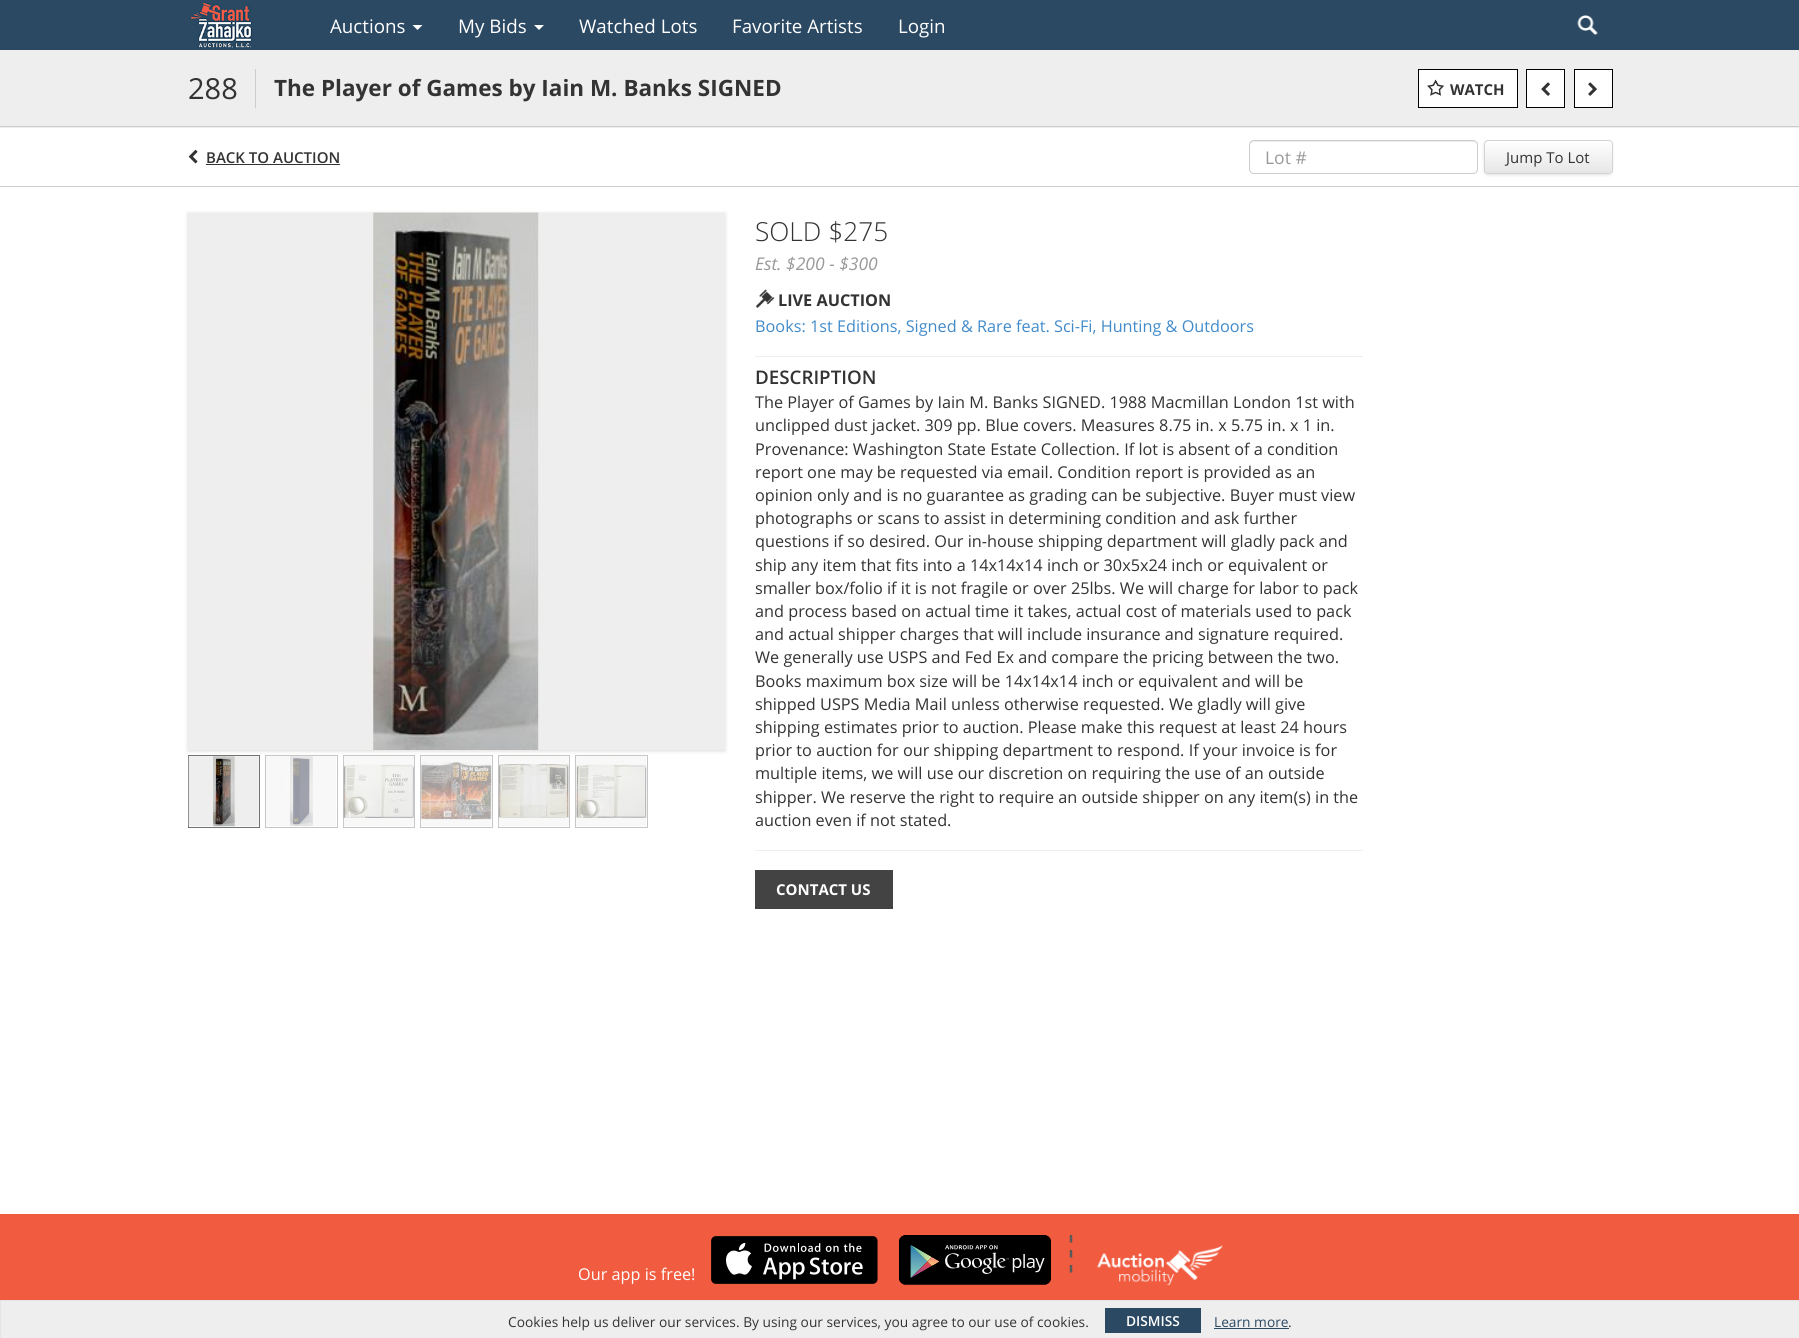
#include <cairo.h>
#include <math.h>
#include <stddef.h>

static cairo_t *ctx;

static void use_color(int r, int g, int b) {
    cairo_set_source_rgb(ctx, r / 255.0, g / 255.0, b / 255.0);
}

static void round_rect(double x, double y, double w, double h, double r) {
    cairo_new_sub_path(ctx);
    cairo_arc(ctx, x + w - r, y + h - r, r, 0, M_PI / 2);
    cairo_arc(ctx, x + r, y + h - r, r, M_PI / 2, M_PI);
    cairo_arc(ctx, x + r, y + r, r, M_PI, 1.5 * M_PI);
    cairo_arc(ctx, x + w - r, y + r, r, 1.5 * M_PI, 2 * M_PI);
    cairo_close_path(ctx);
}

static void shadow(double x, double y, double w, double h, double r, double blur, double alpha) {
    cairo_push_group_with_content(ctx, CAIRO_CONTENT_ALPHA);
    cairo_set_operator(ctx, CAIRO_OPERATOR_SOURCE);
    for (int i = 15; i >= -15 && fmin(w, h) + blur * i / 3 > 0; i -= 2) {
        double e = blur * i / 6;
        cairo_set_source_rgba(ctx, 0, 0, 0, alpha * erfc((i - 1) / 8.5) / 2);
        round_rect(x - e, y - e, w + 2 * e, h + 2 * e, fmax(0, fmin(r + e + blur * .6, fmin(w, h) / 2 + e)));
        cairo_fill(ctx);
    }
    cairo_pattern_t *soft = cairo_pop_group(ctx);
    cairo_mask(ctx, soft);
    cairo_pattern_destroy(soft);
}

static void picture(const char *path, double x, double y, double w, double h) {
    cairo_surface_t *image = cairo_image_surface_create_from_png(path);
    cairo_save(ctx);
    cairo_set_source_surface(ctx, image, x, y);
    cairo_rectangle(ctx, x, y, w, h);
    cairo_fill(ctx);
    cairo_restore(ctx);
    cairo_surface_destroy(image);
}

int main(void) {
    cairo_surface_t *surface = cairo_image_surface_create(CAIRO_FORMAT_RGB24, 1799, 1338);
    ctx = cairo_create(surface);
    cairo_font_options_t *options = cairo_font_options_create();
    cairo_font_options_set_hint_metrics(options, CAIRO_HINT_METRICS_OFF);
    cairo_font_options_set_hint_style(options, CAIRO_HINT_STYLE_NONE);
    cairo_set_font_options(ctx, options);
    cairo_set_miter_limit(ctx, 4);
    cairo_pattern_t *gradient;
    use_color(255, 255, 255);
    cairo_paint(ctx);
    use_color(43, 73, 99);
    cairo_rectangle(ctx, 0, 0, 1799, 50);
    cairo_fill(ctx);
    picture("img1.png", 190, 2, 62, 47);
    cairo_select_font_face(ctx, "Open Sans", CAIRO_FONT_SLANT_NORMAL, CAIRO_FONT_WEIGHT_NORMAL);
    cairo_set_font_size(ctx, 18.75);
    use_color(255, 255, 255);
    cairo_move_to(ctx, 330, 33);
    cairo_show_text(ctx, "Auctions");
    cairo_new_path(ctx);
    cairo_move_to(ctx, 412.5, 25);
    cairo_line_to(ctx, 422.5, 25);
    cairo_line_to(ctx, 417.5, 30);
    cairo_close_path(ctx);
    cairo_fill(ctx);
    cairo_move_to(ctx, 458, 33);
    cairo_show_text(ctx, "My Bids");
    cairo_new_path(ctx);
    cairo_move_to(ctx, 534, 25);
    cairo_line_to(ctx, 544, 25);
    cairo_line_to(ctx, 539, 30);
    cairo_close_path(ctx);
    cairo_fill(ctx);
    cairo_move_to(ctx, 579, 33);
    cairo_show_text(ctx, "Watched Lots");
    cairo_move_to(ctx, 732, 33);
    cairo_show_text(ctx, "Favorite Artists");
    cairo_move_to(ctx, 898, 33);
    cairo_show_text(ctx, "Login");
    picture("img2.png", 1577, 15, 21, 20);
    use_color(238, 238, 238);
    cairo_rectangle(ctx, 0, 50, 1799, 78);
    cairo_fill(ctx);
    use_color(204, 204, 204);
    cairo_rectangle(ctx, 0, 126, 1799, 1);
    cairo_fill(ctx);
    use_color(238, 238, 238);
    cairo_rectangle(ctx, 188, 126, 1425, 1);
    cairo_fill(ctx);
    use_color(204, 204, 204);
    cairo_rectangle(ctx, 188, 126, 1425, 1);
    cairo_fill(ctx);
    cairo_set_font_size(ctx, 29);
    use_color(51, 51, 51);
    cairo_move_to(ctx, 188, 99);
    cairo_show_text(ctx, "288");
    use_color(204, 204, 204);
    cairo_rectangle(ctx, 255, 69, 1, 39);
    cairo_fill(ctx);
    cairo_select_font_face(ctx, "Open Sans", CAIRO_FONT_SLANT_NORMAL, CAIRO_FONT_WEIGHT_BOLD);
    cairo_set_font_size(ctx, 22.5);
    use_color(51, 51, 51);
    cairo_move_to(ctx, 274, 96);
    cairo_show_text(ctx, "The Player of Games by Iain M. Banks SIGNED");
    use_color(255, 255, 255);
    cairo_rectangle(ctx, 1418.5, 69.5, 99, 38);
    cairo_fill_preserve(ctx);
    use_color(0, 0, 0);
    cairo_set_line_width(ctx, 1);
    cairo_stroke(ctx);
    picture("img3.png", 1427, 79, 17, 17);
    cairo_set_font_size(ctx, 15);
    use_color(51, 51, 51);
    cairo_move_to(ctx, 1450, 95);
    cairo_show_text(ctx, "WATCH");
    use_color(255, 255, 255);
    cairo_rectangle(ctx, 1526.5, 69.5, 38, 38);
    cairo_fill_preserve(ctx);
    use_color(0, 0, 0);
    cairo_stroke(ctx);
    picture("img4.png", 1541, 82, 9, 14);
    use_color(255, 255, 255);
    cairo_rectangle(ctx, 1574.5, 69.5, 38, 38);
    cairo_fill_preserve(ctx);
    use_color(0, 0, 0);
    cairo_stroke(ctx);
    picture("img5.png", 1588, 82, 9, 14);
    use_color(204, 204, 204);
    cairo_rectangle(ctx, 0, 186, 1799, 1);
    cairo_fill(ctx);
    use_color(255, 255, 255);
    cairo_rectangle(ctx, 188, 186, 1425, 1);
    cairo_fill(ctx);
    use_color(204, 204, 204);
    cairo_rectangle(ctx, 188, 186, 1425, 1);
    cairo_fill(ctx);
    picture("img6.png", 188, 149, 10, 15);
    cairo_select_font_face(ctx, "Open Sans SemiBold", CAIRO_FONT_SLANT_NORMAL, CAIRO_FONT_WEIGHT_NORMAL);
    use_color(51, 51, 51);
    cairo_move_to(ctx, 206, 163);
    cairo_show_text(ctx, "BACK TO AUCTION");
    cairo_rectangle(ctx, 206, 164, 134, 1);
    cairo_fill(ctx);
    use_color(236, 236, 236);
    cairo_new_path(ctx);
    cairo_move_to(ctx, 1254, 142);
    cairo_line_to(ctx, 1472, 142);
    cairo_curve_to(ctx, 1475, 142, 1476, 144, 1476, 146);
    cairo_curve_to(ctx, 1476, 143, 1475, 141, 1472, 141);
    cairo_line_to(ctx, 1254, 141);
    cairo_curve_to(ctx, 1251, 141, 1250, 143, 1250, 146);
    cairo_curve_to(ctx, 1250, 144, 1252, 142, 1254, 142);
    cairo_close_path(ctx);
    cairo_fill(ctx);
    round_rect(1249.5, 140.5, 228, 33, 4.5);
    use_color(204, 204, 204);
    cairo_stroke(ctx);
    cairo_select_font_face(ctx, "Open Sans", CAIRO_FONT_SLANT_NORMAL, CAIRO_FONT_WEIGHT_NORMAL);
    cairo_set_font_size(ctx, 17.5);
    use_color(153, 153, 153);
    cairo_move_to(ctx, 1265, 164);
    cairo_show_text(ctx, "Lot #");
    use_color(0, 0, 0);
    shadow(1485, 143, 126, 31, 2.5, 2, 0.2);
    cairo_save(ctx);
    round_rect(1484, 140, 129, 34, 4);
    cairo_clip(ctx);
    gradient = cairo_pattern_create_linear(1548, 141, 1548, 173);
    cairo_pattern_add_color_stop_rgba(gradient, 0, 1, 1, 1, 1);
    cairo_pattern_add_color_stop_rgba(gradient, 1, 0.902, 0.902, 0.902, 1);
    cairo_set_source(ctx, gradient);
    cairo_pattern_destroy(gradient);
    cairo_rectangle(ctx, 1484, 141, 129, 32);
    cairo_fill(ctx);
    cairo_restore(ctx);
    round_rect(1484.5, 140.5, 128, 33, 3.5);
    use_color(212, 212, 212);
    cairo_stroke(ctx);
    cairo_set_font_size(ctx, 15);
    use_color(51, 51, 51);
    cairo_move_to(ctx, 1506, 163);
    cairo_show_text(ctx, "Jump To Lot");
    use_color(218, 217, 215);
    shadow(188, 214, 537, 537, 0, 2, 1);
    picture("img7.png", 187, 212, 538, 538);
    cairo_rectangle(ctx, 188.5, 755.5, 71, 72);
    use_color(113, 113, 113);
    cairo_stroke(ctx);
    cairo_rectangle(ctx, 265.5, 755.5, 72, 72);
    use_color(198, 198, 198);
    cairo_stroke(ctx);
    cairo_rectangle(ctx, 343.5, 755.5, 71, 72);
    cairo_stroke(ctx);
    cairo_rectangle(ctx, 420.5, 755.5, 72, 72);
    cairo_stroke(ctx);
    cairo_rectangle(ctx, 498.5, 755.5, 71, 72);
    cairo_stroke(ctx);
    cairo_rectangle(ctx, 575.5, 755.5, 72, 72);
    cairo_stroke(ctx);
    picture("img8.png", 188, 756, 71, 71);
    picture("img9.png", 266, 756, 70, 71);
    picture("img10.png", 343, 756, 71, 70);
    picture("img11.png", 421, 756, 71, 70);
    picture("img12.png", 498, 756, 71, 70);
    picture("img13.png", 576, 756, 71, 70);
    cairo_select_font_face(ctx, "Open Sans Light", CAIRO_FONT_SLANT_NORMAL, CAIRO_FONT_WEIGHT_NORMAL);
    cairo_set_font_size(ctx, 26.25);
    use_color(51, 51, 51);
    cairo_move_to(ctx, 755, 241);
    cairo_show_text(ctx, "SOLD $275");
    cairo_select_font_face(ctx, "Open Sans", CAIRO_FONT_SLANT_ITALIC, CAIRO_FONT_WEIGHT_NORMAL);
    cairo_set_font_size(ctx, 17.5);
    use_color(153, 153, 153);
    cairo_move_to(ctx, 755, 270);
    cairo_show_text(ctx, "Est. $200 - $300");
    picture("img14.png", 755, 289, 20, 19);
    cairo_select_font_face(ctx, "Open Sans", CAIRO_FONT_SLANT_NORMAL, CAIRO_FONT_WEIGHT_BOLD);
    cairo_set_font_size(ctx, 16.25);
    use_color(51, 51, 51);
    cairo_move_to(ctx, 778, 306);
    cairo_show_text(ctx, "LIVE AUCTION");
    cairo_select_font_face(ctx, "Open Sans", CAIRO_FONT_SLANT_NORMAL, CAIRO_FONT_WEIGHT_NORMAL);
    use_color(66, 139, 202);
    cairo_move_to(ctx, 755, 332);
    cairo_show_text(ctx, "Books: 1st Editions, Signed & Rare feat. Sci-Fi, Hunting & Outdoors");
    use_color(238, 238, 238);
    cairo_rectangle(ctx, 755, 356, 608, 1);
    cairo_fill(ctx);
    cairo_select_font_face(ctx, "Open Sans SemiBold", CAIRO_FONT_SLANT_NORMAL, CAIRO_FONT_WEIGHT_NORMAL);
    cairo_set_font_size(ctx, 18.75);
    use_color(51, 51, 51);
    cairo_move_to(ctx, 755, 384);
    cairo_show_text(ctx, "DESCRIPTION");
    cairo_select_font_face(ctx, "Open Sans", CAIRO_FONT_SLANT_NORMAL, CAIRO_FONT_WEIGHT_NORMAL);
    cairo_set_font_size(ctx, 16.25);
    cairo_move_to(ctx, 755, 408);
    cairo_show_text(ctx, "The Player of Games by Iain M. Banks SIGNED. 1988 Macmillan London 1st with");
    cairo_move_to(ctx, 755, 431);
    cairo_show_text(ctx, "unclipped dust jacket. 309 pp. Blue covers. Measures 8.75 in. x 5.75 in. x 1 in.");
    cairo_move_to(ctx, 755, 455);
    cairo_show_text(ctx, "Provenance: Washington State Estate Collection. If lot is absent of a condition");
    cairo_move_to(ctx, 755, 478);
    cairo_show_text(ctx, "report one may be requested via email. Condition report is provided as an");
    cairo_move_to(ctx, 755, 501);
    cairo_show_text(ctx, "opinion only and is no guarantee as grading can be subjective. Buyer must view");
    cairo_move_to(ctx, 755, 524);
    cairo_show_text(ctx, "photographs or scans to assist in determining condition and ask further");
    cairo_move_to(ctx, 755, 547);
    cairo_show_text(ctx, "questions if so desired. Our in-house shipping department will gladly pack and");
    cairo_move_to(ctx, 755, 571);
    cairo_show_text(ctx, "ship any item that fits into a 14x14x14 inch or 30x5x24 inch or equivalent or");
    cairo_move_to(ctx, 755, 594);
    cairo_show_text(ctx, "smaller box/folio if it is not fragile or over 25lbs. We will charge for labor to pack");
    cairo_move_to(ctx, 755, 617);
    cairo_show_text(ctx, "and process based on actual time it takes, actual cost of materials used to pack");
    cairo_move_to(ctx, 755, 640);
    cairo_show_text(ctx, "and actual shipper charges that will include insurance and signature required.");
    cairo_move_to(ctx, 755, 663);
    cairo_show_text(ctx, "We generally use USPS and Fed Ex and compare the pricing between the two.");
    cairo_move_to(ctx, 755, 687);
    cairo_show_text(ctx, "Books maximum box size will be 14x14x14 inch or equivalent and will be");
    cairo_move_to(ctx, 755, 710);
    cairo_show_text(ctx, "shipped USPS Media Mail unless otherwise requested. We gladly will give");
    cairo_move_to(ctx, 755, 733);
    cairo_show_text(ctx, "shipping estimates prior to auction. Please make this request at least 24 hours");
    cairo_move_to(ctx, 755, 756);
    cairo_show_text(ctx, "prior to auction for our shipping department to respond. If your invoice is for");
    cairo_move_to(ctx, 755, 779);
    cairo_show_text(ctx, "multiple items, we will use our discretion on requiring the use of an outside");
    cairo_move_to(ctx, 755, 803);
    cairo_show_text(ctx, "shipper. We reserve the right to require an outside shipper on any item(s) in the");
    cairo_move_to(ctx, 755, 826);
    cairo_show_text(ctx, "auction even if not stated.");
    use_color(238, 238, 238);
    cairo_rectangle(ctx, 755, 850, 608, 1);
    cairo_fill(ctx);
    use_color(67, 67, 67);
    cairo_rectangle(ctx, 755, 870, 138, 39);
    cairo_fill(ctx);
    cairo_select_font_face(ctx, "Open Sans", CAIRO_FONT_SLANT_NORMAL, CAIRO_FONT_WEIGHT_BOLD);
    cairo_set_font_size(ctx, 15);
    use_color(255, 255, 255);
    cairo_move_to(ctx, 776, 895);
    cairo_show_text(ctx, "CONTACT US");
    use_color(241, 91, 64);
    cairo_rectangle(ctx, 0, 1214, 1799, 86);
    cairo_fill(ctx);
    cairo_select_font_face(ctx, "Open Sans", CAIRO_FONT_SLANT_NORMAL, CAIRO_FONT_WEIGHT_NORMAL);
    cairo_set_font_size(ctx, 16.25);
    use_color(255, 255, 255);
    cairo_move_to(ctx, 578, 1280);
    cairo_show_text(ctx, "Our app is free!");
    picture("img15.png", 711, 1236, 167, 48);
    picture("img16.png", 899, 1235, 152, 50);
    cairo_new_path(ctx);
    cairo_move_to(ctx, 1071, 1235);
    cairo_line_to(ctx, 1071, 1242.5);
    cairo_move_to(ctx, 1071, 1250);
    cairo_line_to(ctx, 1071, 1257.5);
    cairo_move_to(ctx, 1071, 1265);
    cairo_line_to(ctx, 1071, 1272.5);
    use_color(89, 89, 89);
    cairo_set_line_width(ctx, 2.5);
    cairo_stroke(ctx);
    picture("img17.png", 1097, 1245, 126, 40);
    use_color(238, 238, 238);
    cairo_rectangle(ctx, 1, 1301, 1798, 37);
    cairo_fill(ctx);
    use_color(228, 228, 228);
    cairo_rectangle(ctx, 0, 1300, 1799, 1);
    cairo_fill(ctx);
    cairo_rectangle(ctx, 0, 1300, 1, 38);
    cairo_fill(ctx);
    cairo_set_font_size(ctx, 13.75);
    use_color(51, 51, 51);
    cairo_move_to(ctx, 508, 1327);
    cairo_show_text(ctx, "Cookies help us deliver our services. By using our services, you agree to our use of cookies.");
    use_color(43, 73, 99);
    cairo_rectangle(ctx, 1105, 1308, 96, 25);
    cairo_fill(ctx);
    cairo_select_font_face(ctx, "Open Sans SemiBold", CAIRO_FONT_SLANT_NORMAL, CAIRO_FONT_WEIGHT_NORMAL);
    use_color(255, 255, 255);
    cairo_move_to(ctx, 1126, 1326);
    cairo_show_text(ctx, "DISMISS");
    cairo_select_font_face(ctx, "Open Sans", CAIRO_FONT_SLANT_NORMAL, CAIRO_FONT_WEIGHT_NORMAL);
    use_color(43, 73, 99);
    cairo_move_to(ctx, 1214, 1327);
    cairo_show_text(ctx, "Learn more");
    cairo_rectangle(ctx, 1214, 1328, 75, 1);
    cairo_fill(ctx);
    use_color(51, 51, 51);
    cairo_move_to(ctx, 1288, 1327);
    cairo_show_text(ctx, ".");
    cairo_surface_write_to_png(surface, "result.png");
    cairo_font_options_destroy(options);
    cairo_destroy(ctx);
    cairo_surface_destroy(surface);
    return 0;
}
